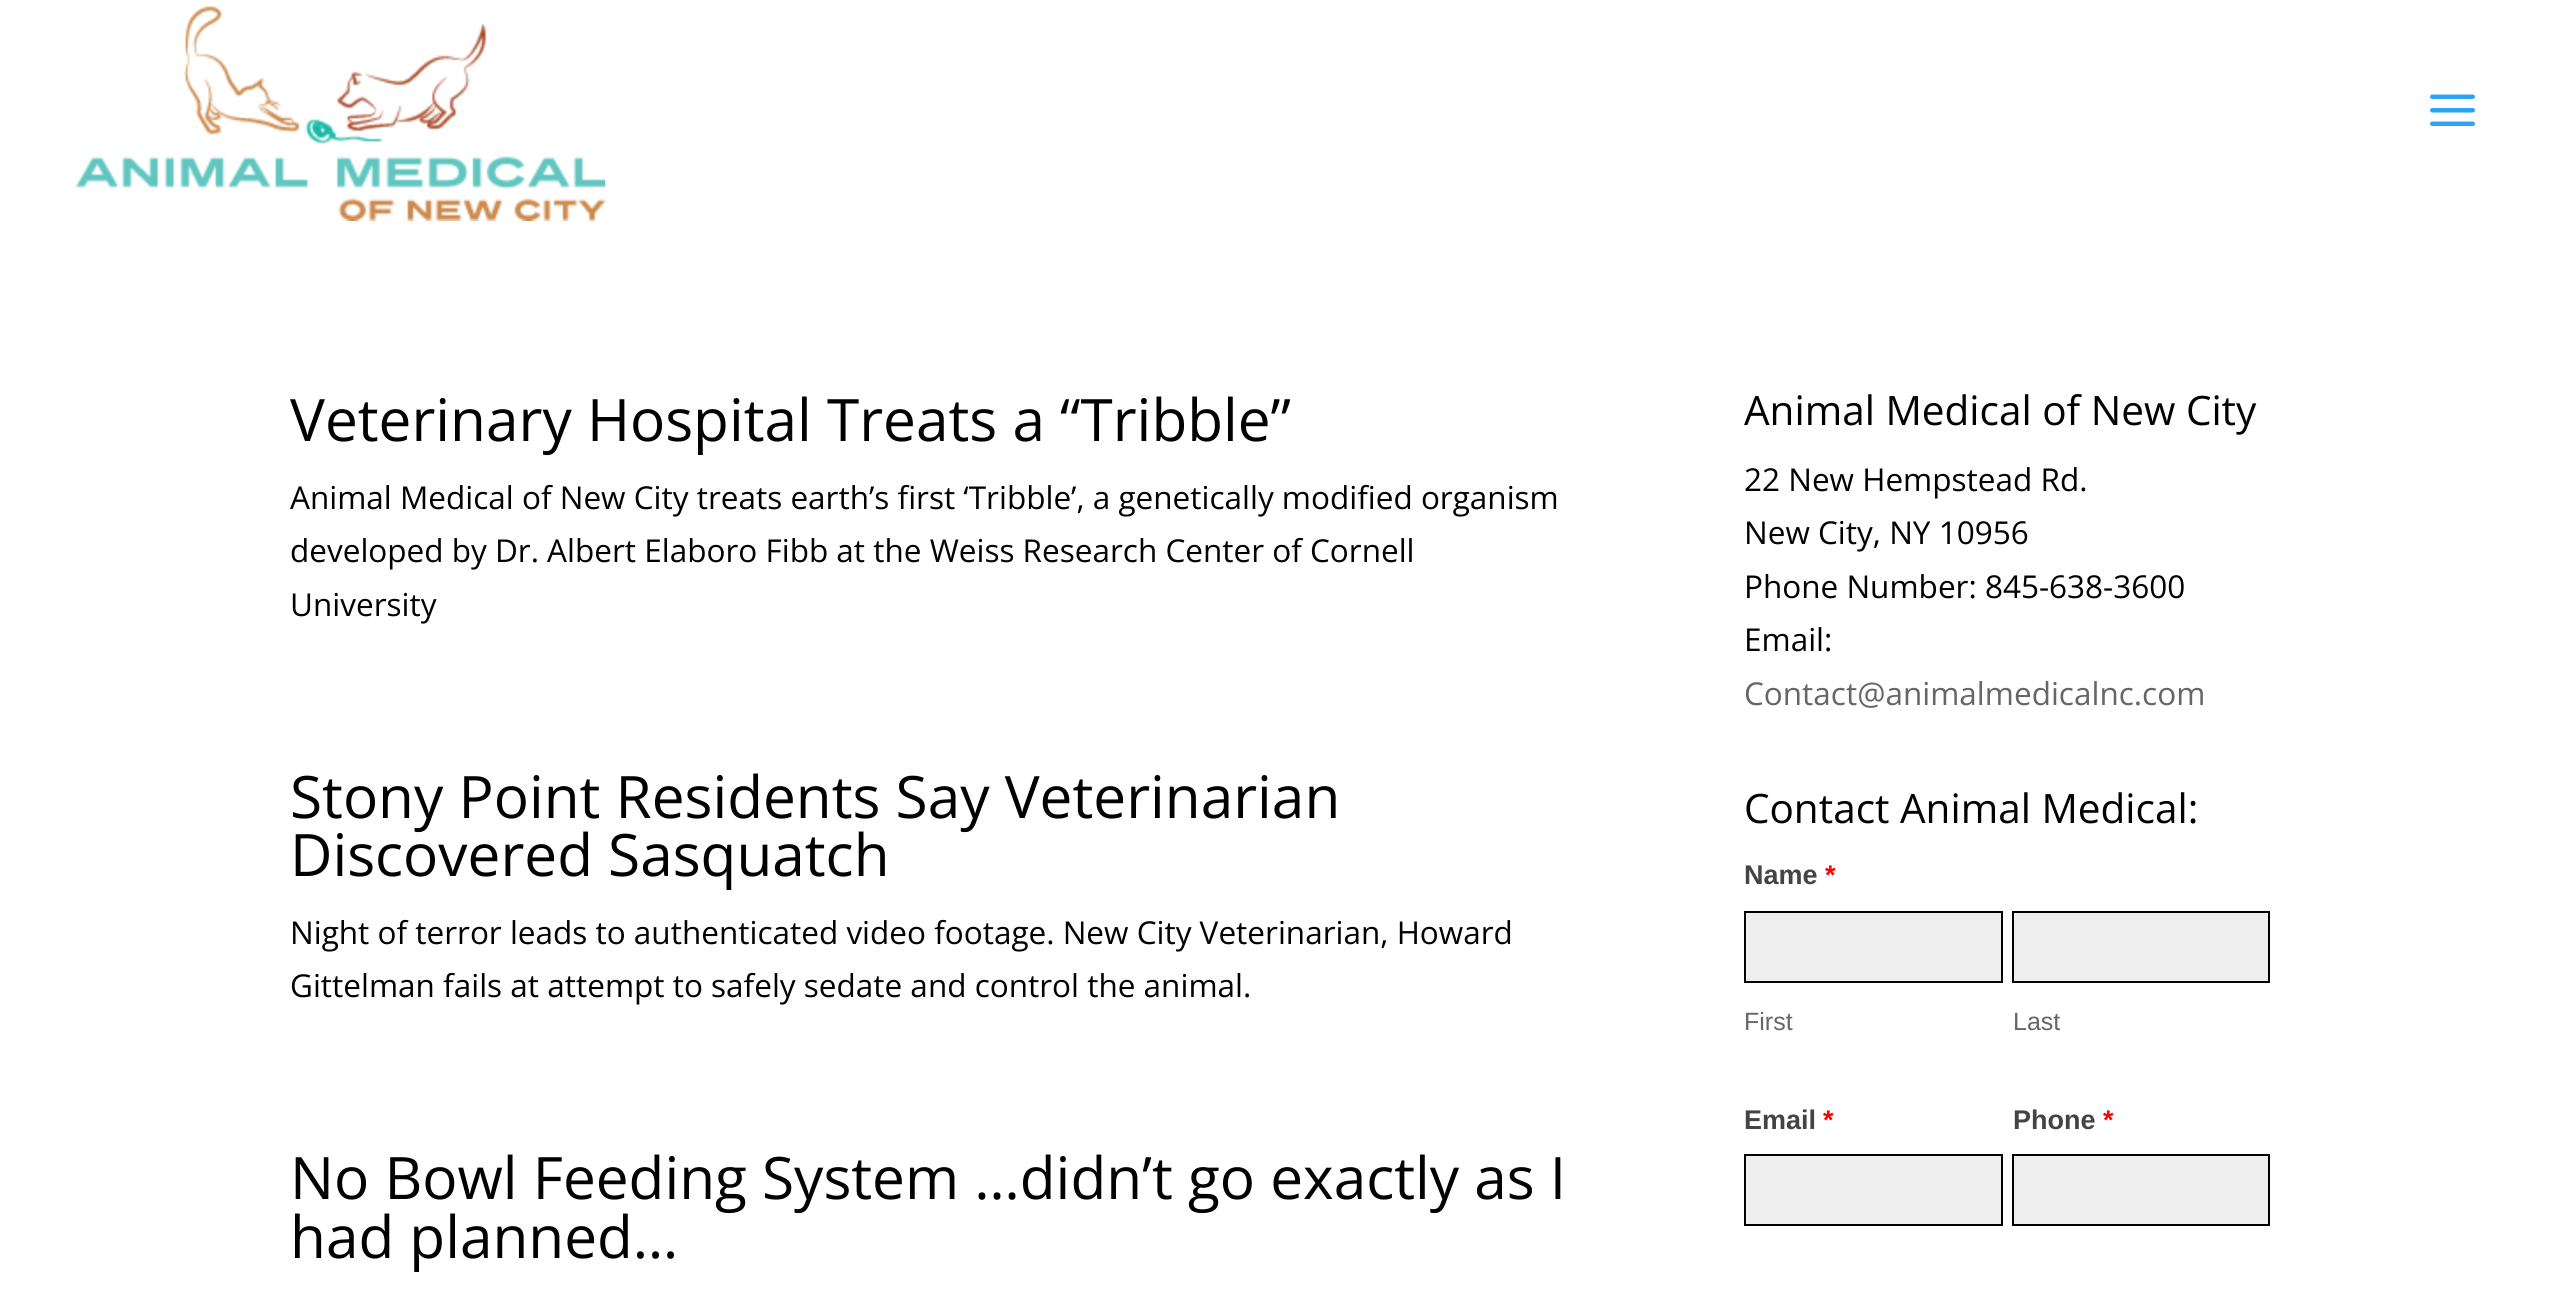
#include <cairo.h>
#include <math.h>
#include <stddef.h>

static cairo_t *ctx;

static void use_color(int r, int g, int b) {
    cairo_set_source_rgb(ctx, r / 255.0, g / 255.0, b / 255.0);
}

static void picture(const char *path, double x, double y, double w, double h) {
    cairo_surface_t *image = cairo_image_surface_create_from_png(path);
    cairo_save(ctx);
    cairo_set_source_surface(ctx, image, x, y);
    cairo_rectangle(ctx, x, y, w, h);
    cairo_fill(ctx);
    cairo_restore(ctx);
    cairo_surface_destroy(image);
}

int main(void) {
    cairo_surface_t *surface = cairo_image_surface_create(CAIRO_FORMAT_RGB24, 2559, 1299);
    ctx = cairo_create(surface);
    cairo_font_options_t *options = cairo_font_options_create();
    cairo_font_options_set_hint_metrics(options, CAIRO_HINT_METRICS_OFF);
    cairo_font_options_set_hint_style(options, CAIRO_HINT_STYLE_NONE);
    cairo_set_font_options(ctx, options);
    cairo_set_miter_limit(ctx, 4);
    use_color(255, 255, 255);
    cairo_paint(ctx);
    picture("img1.png", 76, 6, 530, 215);
    picture("img2.png", 2430, 94, 45, 32);
    cairo_select_font_face(ctx, "Open Sans", CAIRO_FONT_SLANT_NORMAL, CAIRO_FONT_WEIGHT_NORMAL);
    cairo_set_font_size(ctx, 58.5);
    use_color(0, 0, 0);
    cairo_move_to(ctx, 290, 441);
    cairo_show_text(ctx, "Veterinary Hospital Treats a “Tribble”");
    cairo_set_font_size(ctx, 31.5);
    cairo_move_to(ctx, 290, 509);
    cairo_show_text(ctx, "Animal Medical of New City treats earth’s first ‘Tribble’, a genetically modified organism");
    cairo_move_to(ctx, 290, 562);
    cairo_show_text(ctx, "developed by Dr. Albert Elaboro Fibb at the Weiss Research Center of Cornell");
    cairo_move_to(ctx, 290, 616);
    cairo_show_text(ctx, "University");
    cairo_set_font_size(ctx, 58.5);
    cairo_move_to(ctx, 290, 818);
    cairo_show_text(ctx, "Stony Point Residents Say Veterinarian");
    cairo_move_to(ctx, 290, 876);
    cairo_show_text(ctx, "Discovered Sasquatch");
    cairo_set_font_size(ctx, 31.5);
    cairo_move_to(ctx, 290, 944);
    cairo_show_text(ctx, "Night of terror leads to authenticated video footage. New City Veterinarian, Howard");
    cairo_move_to(ctx, 290, 997);
    cairo_show_text(ctx, "Gittelman fails at attempt to safely sedate and control the animal.");
    cairo_set_font_size(ctx, 58.5);
    cairo_move_to(ctx, 290, 1199);
    cairo_show_text(ctx, "No Bowl Feeding System …didn’t go exactly as I");
    cairo_move_to(ctx, 290, 1258);
    cairo_show_text(ctx, "had planned…");
    cairo_set_font_size(ctx, 40.5);
    cairo_move_to(ctx, 1744, 425);
    cairo_show_text(ctx, "Animal Medical of New City");
    cairo_set_font_size(ctx, 31.5);
    cairo_move_to(ctx, 1744, 491);
    cairo_show_text(ctx, "22 New Hempstead Rd.");
    cairo_move_to(ctx, 1744, 544);
    cairo_show_text(ctx, "New City, NY 10956");
    cairo_move_to(ctx, 1744, 598);
    cairo_show_text(ctx, "Phone Number: 845-638-3600");
    cairo_move_to(ctx, 1744, 651);
    cairo_show_text(ctx, "Email:");
    use_color(102, 102, 102);
    cairo_move_to(ctx, 1744, 705);
    cairo_show_text(ctx, "Contact@animalmedicalnc.com");
    cairo_set_font_size(ctx, 40.5);
    use_color(0, 0, 0);
    cairo_move_to(ctx, 1744, 823);
    cairo_show_text(ctx, "Contact Animal Medical:");
    cairo_select_font_face(ctx, "Liberation Sans", CAIRO_FONT_SLANT_NORMAL, CAIRO_FONT_WEIGHT_BOLD);
    cairo_set_font_size(ctx, 27);
    use_color(68, 68, 68);
    cairo_move_to(ctx, 1744, 884);
    cairo_show_text(ctx, "Name");
    use_color(255, 0, 0);
    cairo_move_to(ctx, 1825, 884);
    cairo_show_text(ctx, "*");
    use_color(238, 238, 238);
    cairo_rectangle(ctx, 1745, 912, 257, 70);
    cairo_fill_preserve(ctx);
    use_color(0, 0, 0);
    cairo_stroke(ctx);
    cairo_select_font_face(ctx, "Liberation Sans", CAIRO_FONT_SLANT_NORMAL, CAIRO_FONT_WEIGHT_NORMAL);
    cairo_set_font_size(ctx, 25);
    use_color(102, 102, 102);
    cairo_move_to(ctx, 1744, 1030);
    cairo_show_text(ctx, "First");
    use_color(238, 238, 238);
    cairo_rectangle(ctx, 2013, 912, 256, 70);
    cairo_fill_preserve(ctx);
    use_color(0, 0, 0);
    cairo_stroke(ctx);
    use_color(102, 102, 102);
    cairo_move_to(ctx, 2013, 1030);
    cairo_show_text(ctx, "Last");
    cairo_select_font_face(ctx, "Liberation Sans", CAIRO_FONT_SLANT_NORMAL, CAIRO_FONT_WEIGHT_BOLD);
    cairo_set_font_size(ctx, 27);
    use_color(68, 68, 68);
    cairo_move_to(ctx, 1744, 1129);
    cairo_show_text(ctx, "Email");
    use_color(255, 0, 0);
    cairo_move_to(ctx, 1823, 1129);
    cairo_show_text(ctx, "*");
    use_color(238, 238, 238);
    cairo_rectangle(ctx, 1745, 1155, 257, 70);
    cairo_fill_preserve(ctx);
    use_color(0, 0, 0);
    cairo_stroke(ctx);
    use_color(68, 68, 68);
    cairo_move_to(ctx, 2013, 1129);
    cairo_show_text(ctx, "Phone");
    use_color(255, 0, 0);
    cairo_move_to(ctx, 2103, 1129);
    cairo_show_text(ctx, "*");
    use_color(238, 238, 238);
    cairo_rectangle(ctx, 2013, 1155, 256, 70);
    cairo_fill_preserve(ctx);
    use_color(0, 0, 0);
    cairo_stroke(ctx);
    cairo_surface_write_to_png(surface, "result.png");
    cairo_font_options_destroy(options);
    cairo_destroy(ctx);
    cairo_surface_destroy(surface);
    return 0;
}
